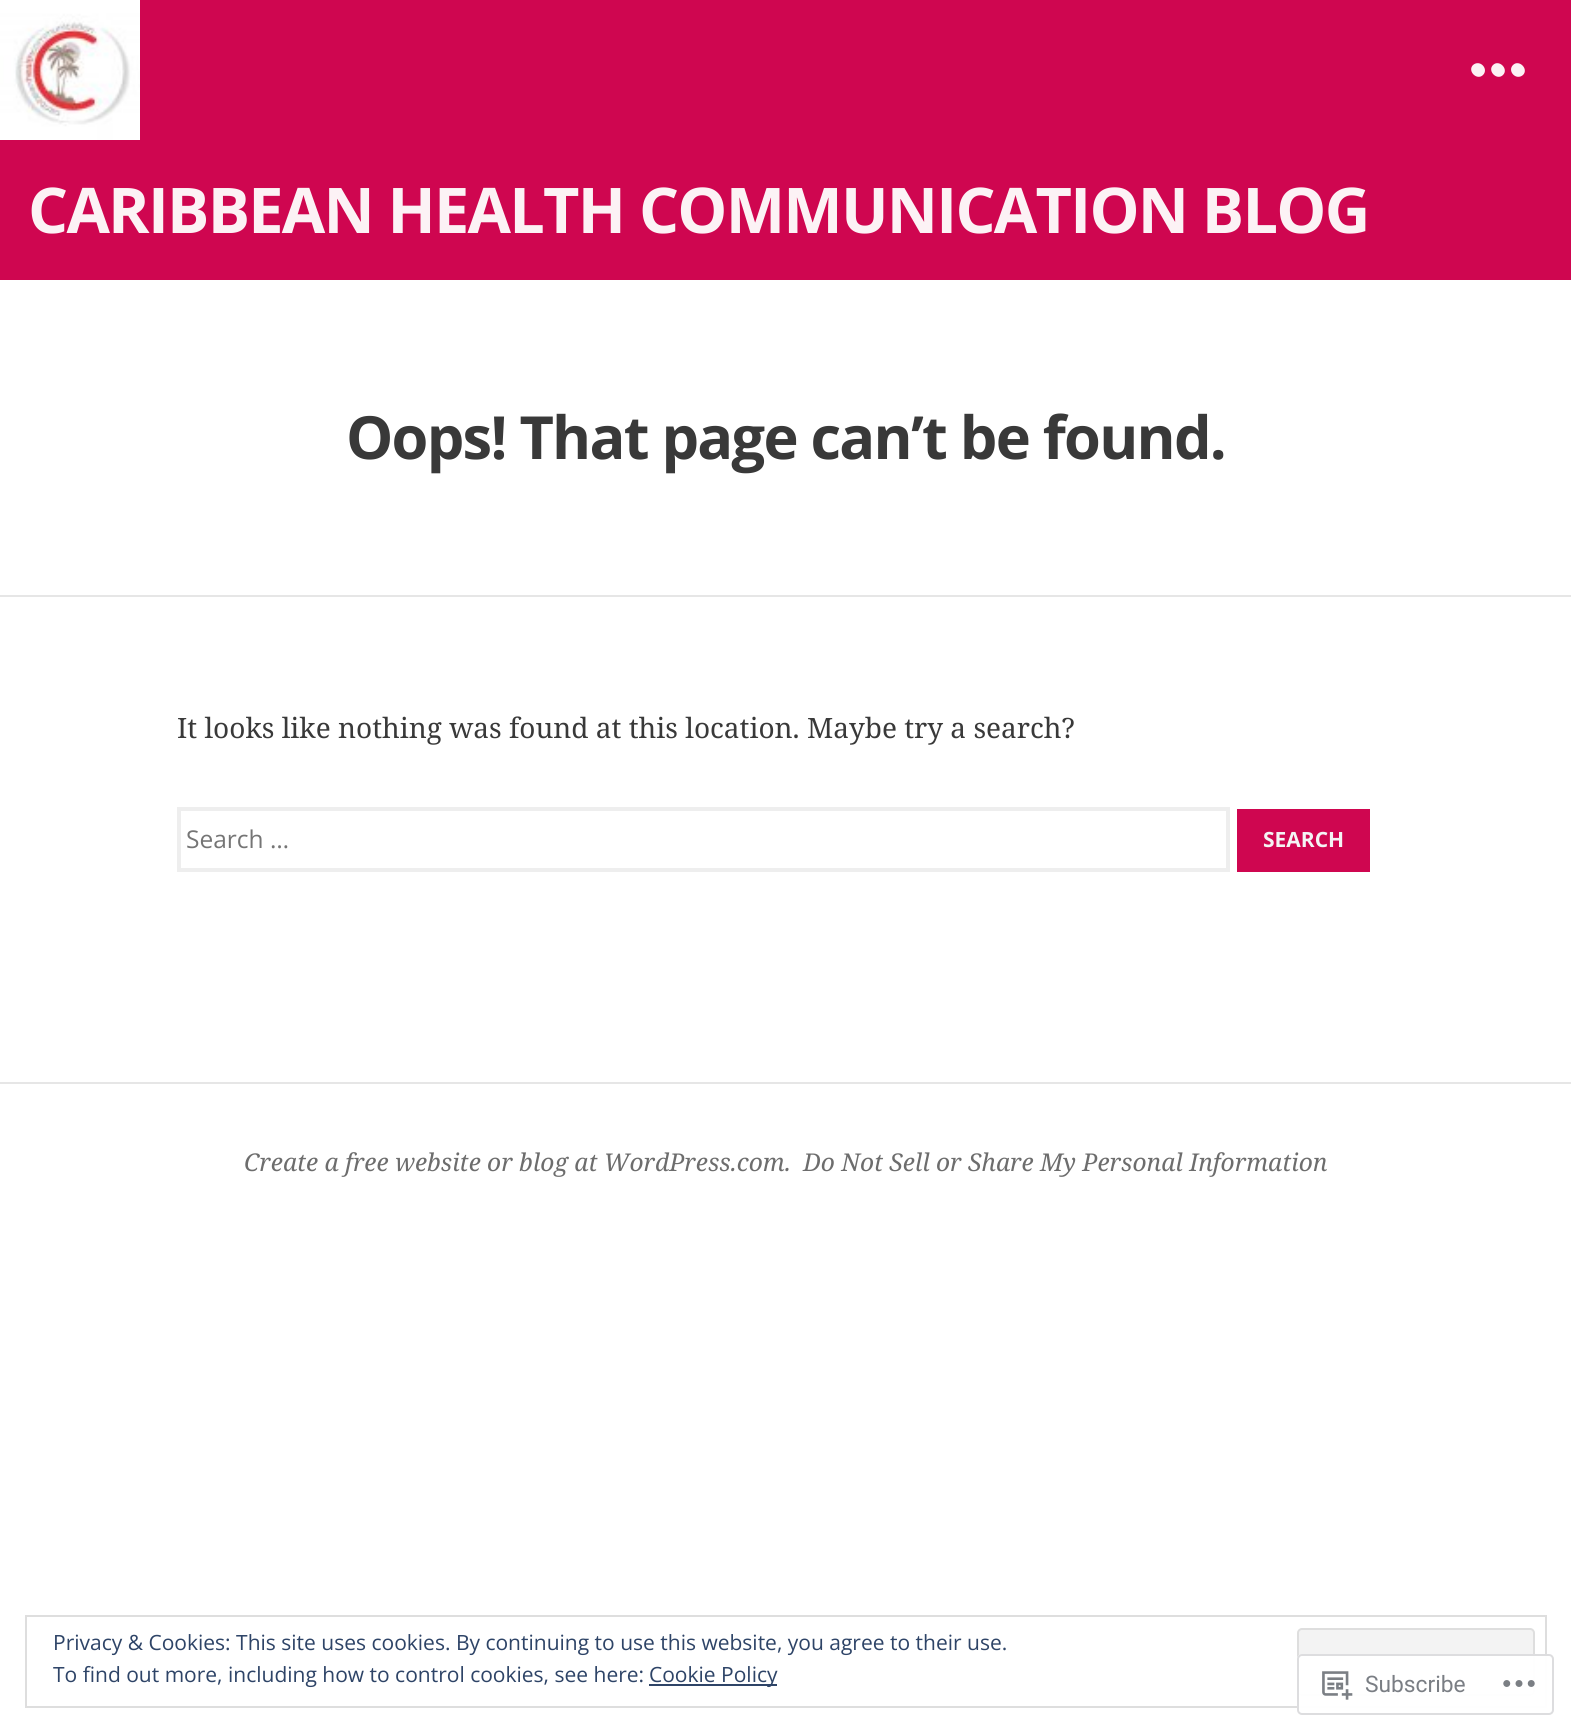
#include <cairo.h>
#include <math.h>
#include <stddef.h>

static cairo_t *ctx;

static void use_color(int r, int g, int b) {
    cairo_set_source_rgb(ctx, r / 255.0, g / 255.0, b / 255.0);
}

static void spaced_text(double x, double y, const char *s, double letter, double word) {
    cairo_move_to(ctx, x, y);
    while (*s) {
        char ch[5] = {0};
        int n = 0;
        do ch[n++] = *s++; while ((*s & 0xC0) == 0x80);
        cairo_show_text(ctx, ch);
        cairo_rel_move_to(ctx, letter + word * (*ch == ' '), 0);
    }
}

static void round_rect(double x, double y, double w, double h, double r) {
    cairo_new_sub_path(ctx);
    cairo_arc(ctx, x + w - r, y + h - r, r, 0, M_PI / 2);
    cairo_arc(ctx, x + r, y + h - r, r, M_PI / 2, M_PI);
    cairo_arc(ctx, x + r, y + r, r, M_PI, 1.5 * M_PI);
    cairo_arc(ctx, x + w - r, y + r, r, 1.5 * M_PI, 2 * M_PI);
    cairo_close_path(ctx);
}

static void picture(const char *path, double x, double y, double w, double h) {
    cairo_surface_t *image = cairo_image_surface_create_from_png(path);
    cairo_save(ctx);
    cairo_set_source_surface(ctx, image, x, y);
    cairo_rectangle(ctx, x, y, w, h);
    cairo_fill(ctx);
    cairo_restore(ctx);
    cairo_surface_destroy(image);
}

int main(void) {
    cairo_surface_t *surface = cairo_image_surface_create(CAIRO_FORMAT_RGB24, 1571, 1731);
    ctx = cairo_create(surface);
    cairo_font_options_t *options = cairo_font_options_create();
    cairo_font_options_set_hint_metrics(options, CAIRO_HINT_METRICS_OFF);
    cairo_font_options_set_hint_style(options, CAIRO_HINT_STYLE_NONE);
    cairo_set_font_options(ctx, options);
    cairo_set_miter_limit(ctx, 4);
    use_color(255, 255, 255);
    cairo_paint(ctx);
    use_color(207, 6, 80);
    cairo_rectangle(ctx, 0, 0, 1571, 280);
    cairo_fill(ctx);
    picture("img1.png", 0, 0, 140, 140);
    use_color(252, 242, 245);
    cairo_new_path(ctx);
    cairo_move_to(ctx, 1473, 65);
    cairo_curve_to(ctx, 1480, 59, 1489, 69, 1483, 75);
    cairo_curve_to(ctx, 1477, 81, 1467, 71, 1473, 65);
    cairo_close_path(ctx);
    cairo_move_to(ctx, 1493, 65);
    cairo_curve_to(ctx, 1499, 59, 1509, 69, 1503, 75);
    cairo_curve_to(ctx, 1497, 81, 1487, 71, 1493, 65);
    cairo_close_path(ctx);
    cairo_move_to(ctx, 1513, 65);
    cairo_curve_to(ctx, 1519, 59, 1529, 69, 1523, 75);
    cairo_curve_to(ctx, 1516, 81, 1507, 71, 1513, 65);
    cairo_close_path(ctx);
    cairo_fill(ctx);
    cairo_select_font_face(ctx, "Open Sans", CAIRO_FONT_SLANT_NORMAL, CAIRO_FONT_WEIGHT_BOLD);
    cairo_set_font_size(ctx, 63);
    spaced_text(28, 233, "CARIBBEAN HEALTH COMMUNICATION BLOG", -1.75, 0);
    use_color(230, 230, 230);
    cairo_rectangle(ctx, 0, 1082, 1571, 2);
    cairo_fill(ctx);
    cairo_rectangle(ctx, 0, 595, 1571, 2);
    cairo_fill(ctx);
    cairo_set_font_size(ctx, 59.5);
    use_color(57, 57, 57);
    spaced_text(346, 459, "Oops! That page can’t be found.", -1.75, 0);
    cairo_select_font_face(ctx, "Noto Serif", CAIRO_FONT_SLANT_NORMAL, CAIRO_FONT_WEIGHT_NORMAL);
    cairo_set_font_size(ctx, 28);
    cairo_move_to(ctx, 177, 738);
    cairo_show_text(ctx, "It looks like nothing was found at this location. Maybe try a search?");
    cairo_rectangle(ctx, 179, 809, 1049, 61);
    use_color(238, 238, 238);
    cairo_set_line_width(ctx, 4);
    cairo_stroke(ctx);
    cairo_select_font_face(ctx, "Open Sans", CAIRO_FONT_SLANT_NORMAL, CAIRO_FONT_WEIGHT_NORMAL);
    cairo_set_font_size(ctx, 24.5);
    use_color(117, 117, 117);
    cairo_move_to(ctx, 186, 848);
    cairo_show_text(ctx, "Search …");
    use_color(207, 6, 80);
    cairo_rectangle(ctx, 1237, 809, 133, 63);
    cairo_fill(ctx);
    cairo_select_font_face(ctx, "Open Sans", CAIRO_FONT_SLANT_NORMAL, CAIRO_FONT_WEIGHT_BOLD);
    cairo_set_font_size(ctx, 21);
    use_color(244, 244, 244);
    cairo_move_to(ctx, 1263, 847);
    cairo_show_text(ctx, "SEARCH");
    cairo_select_font_face(ctx, "Noto Serif", CAIRO_FONT_SLANT_ITALIC, CAIRO_FONT_WEIGHT_NORMAL);
    cairo_set_font_size(ctx, 24.5);
    use_color(109, 109, 109);
    cairo_move_to(ctx, 244, 1171);
    cairo_show_text(ctx, "Create a free website or blog at WordPress.com.");
    cairo_move_to(ctx, 803, 1171);
    cairo_show_text(ctx, "Do Not Sell or Share My Personal Information");
    cairo_rectangle(ctx, 26, 1616, 1520, 91);
    use_color(222, 222, 222);
    cairo_set_line_width(ctx, 2);
    cairo_stroke(ctx);
    cairo_select_font_face(ctx, "Open Sans", CAIRO_FONT_SLANT_NORMAL, CAIRO_FONT_WEIGHT_NORMAL);
    cairo_set_font_size(ctx, 21);
    use_color(46, 68, 103);
    cairo_move_to(ctx, 53, 1650);
    cairo_show_text(ctx, "Privacy & Cookies: This site uses cookies. By continuing to use this website, you agree to their use.");
    use_color(243, 243, 243);
    round_rect(1298, 1629, 236, 66, 4);
    cairo_fill_preserve(ctx);
    use_color(222, 222, 222);
    cairo_stroke(ctx);
    use_color(46, 68, 103);
    cairo_move_to(ctx, 53, 1682);
    cairo_show_text(ctx, "To find out more, including how to control cookies, see here:");
    cairo_rectangle(ctx, 649, 1684, 128, 2);
    cairo_fill(ctx);
    cairo_move_to(ctx, 649, 1682);
    cairo_show_text(ctx, "Cookie Policy");
    cairo_set_source_rgba(ctx, 1, 1, 1, 0.98);
    round_rect(1297, 1654, 257, 61, 5);
    cairo_fill(ctx);
    round_rect(1298, 1655, 255, 59, 4);
    cairo_set_source_rgba(ctx, 0.863, 0.863, 0.871, 0.98);
    cairo_stroke(ctx);
    picture("img2.png", 1322, 1671, 31, 29);
    cairo_select_font_face(ctx, "Roboto", CAIRO_FONT_SLANT_NORMAL, CAIRO_FONT_WEIGHT_NORMAL);
    cairo_set_font_size(ctx, 22.75);
    use_color(122, 126, 132);
    cairo_move_to(ctx, 1365, 1692);
    cairo_show_text(ctx, "Subscribe");
    picture("img3.png", 1503, 1680, 32, 7);
    cairo_surface_write_to_png(surface, "result.png");
    cairo_font_options_destroy(options);
    cairo_destroy(ctx);
    cairo_surface_destroy(surface);
    return 0;
}
